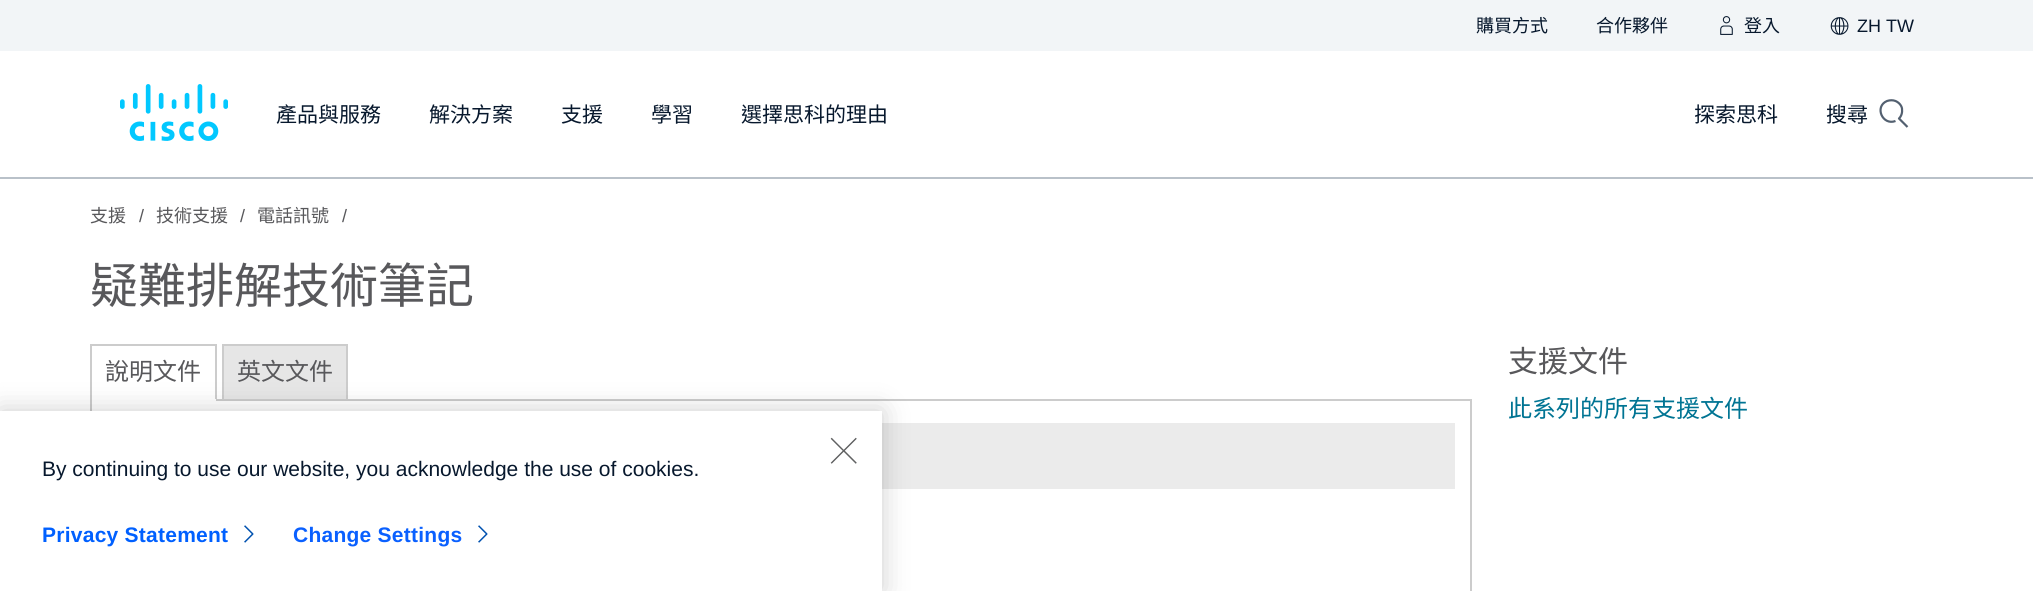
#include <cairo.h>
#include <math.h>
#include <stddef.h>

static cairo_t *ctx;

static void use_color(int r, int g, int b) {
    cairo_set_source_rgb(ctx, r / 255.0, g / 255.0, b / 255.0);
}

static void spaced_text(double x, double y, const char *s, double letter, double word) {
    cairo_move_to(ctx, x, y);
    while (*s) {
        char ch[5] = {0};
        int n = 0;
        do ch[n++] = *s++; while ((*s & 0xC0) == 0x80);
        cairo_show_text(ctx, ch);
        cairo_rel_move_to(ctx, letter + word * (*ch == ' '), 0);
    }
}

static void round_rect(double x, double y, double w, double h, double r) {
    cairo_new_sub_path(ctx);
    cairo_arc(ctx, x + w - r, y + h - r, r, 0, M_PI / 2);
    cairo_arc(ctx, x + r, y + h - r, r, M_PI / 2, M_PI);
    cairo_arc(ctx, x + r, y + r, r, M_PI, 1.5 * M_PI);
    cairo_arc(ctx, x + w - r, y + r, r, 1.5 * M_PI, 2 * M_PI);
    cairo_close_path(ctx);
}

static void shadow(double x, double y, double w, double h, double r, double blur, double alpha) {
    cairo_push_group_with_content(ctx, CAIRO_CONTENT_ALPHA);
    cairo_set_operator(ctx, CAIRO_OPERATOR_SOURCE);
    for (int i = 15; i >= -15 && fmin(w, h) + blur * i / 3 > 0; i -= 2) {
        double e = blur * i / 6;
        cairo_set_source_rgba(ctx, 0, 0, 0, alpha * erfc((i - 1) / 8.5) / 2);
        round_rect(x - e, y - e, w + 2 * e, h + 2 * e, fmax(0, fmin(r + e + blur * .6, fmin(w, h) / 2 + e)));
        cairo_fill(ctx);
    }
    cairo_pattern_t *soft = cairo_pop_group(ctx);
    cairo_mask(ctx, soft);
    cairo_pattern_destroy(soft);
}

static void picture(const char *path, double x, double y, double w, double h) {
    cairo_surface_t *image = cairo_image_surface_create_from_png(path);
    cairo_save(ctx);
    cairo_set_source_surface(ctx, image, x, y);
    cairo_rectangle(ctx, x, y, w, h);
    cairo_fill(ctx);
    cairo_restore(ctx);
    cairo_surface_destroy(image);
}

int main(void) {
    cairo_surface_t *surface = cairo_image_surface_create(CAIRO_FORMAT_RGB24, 2033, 591);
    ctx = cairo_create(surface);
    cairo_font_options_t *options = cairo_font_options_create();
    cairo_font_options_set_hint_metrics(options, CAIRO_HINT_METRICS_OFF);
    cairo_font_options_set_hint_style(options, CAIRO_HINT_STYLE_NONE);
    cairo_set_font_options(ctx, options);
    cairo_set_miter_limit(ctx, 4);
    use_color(242, 245, 247);
    cairo_paint(ctx);
    cairo_select_font_face(ctx, "Noto Sans CJK TC", CAIRO_FONT_SLANT_NORMAL, CAIRO_FONT_WEIGHT_NORMAL);
    cairo_set_font_size(ctx, 18);
    use_color(7, 24, 45);
    cairo_move_to(ctx, 1476, 32);
    cairo_show_text(ctx, "購買方式");
    cairo_move_to(ctx, 1596, 32);
    cairo_show_text(ctx, "合作夥伴");
    picture("img1.png", 1720, 16, 13, 19);
    cairo_move_to(ctx, 1744, 32);
    cairo_show_text(ctx, "登入");
    picture("img2.png", 1830, 17, 19, 18);
    cairo_select_font_face(ctx, "Liberation Sans", CAIRO_FONT_SLANT_NORMAL, CAIRO_FONT_WEIGHT_NORMAL);
    cairo_move_to(ctx, 1857, 32);
    cairo_show_text(ctx, "ZH TW");
    use_color(255, 255, 255);
    cairo_rectangle(ctx, 0, 51, 2033, 126);
    cairo_fill(ctx);
    use_color(185, 193, 201);
    cairo_rectangle(ctx, 0, 177, 2033, 2);
    cairo_fill(ctx);
    picture("img3.png", 120, 84, 108, 57);
    cairo_select_font_face(ctx, "Noto Sans CJK TC", CAIRO_FONT_SLANT_NORMAL, CAIRO_FONT_WEIGHT_NORMAL);
    cairo_set_font_size(ctx, 21);
    use_color(7, 24, 45);
    cairo_move_to(ctx, 276, 122);
    cairo_show_text(ctx, "產品與服務");
    cairo_move_to(ctx, 429, 122);
    cairo_show_text(ctx, "解決方案");
    cairo_move_to(ctx, 561, 122);
    cairo_show_text(ctx, "支援");
    cairo_move_to(ctx, 651, 122);
    cairo_show_text(ctx, "學習");
    cairo_move_to(ctx, 741, 122);
    cairo_show_text(ctx, "選擇思科的理由");
    cairo_move_to(ctx, 1694, 122);
    cairo_show_text(ctx, "探索思科");
    cairo_move_to(ctx, 1826, 122);
    cairo_show_text(ctx, "搜尋");
    cairo_new_path(ctx);
    cairo_move_to(ctx, 1895.5, 121);
    cairo_curve_to(ctx, 1882.5, 126, 1874, 106.5, 1887, 101);
    cairo_curve_to(ctx, 1890, 100, 1893, 100, 1895.5, 101);
    cairo_curve_to(ctx, 1899, 102.5, 1901.5, 105.5, 1902, 108.5);
    cairo_curve_to(ctx, 1902.5, 112.5, 1901.5, 116, 1899, 118.5);
    cairo_line_to(ctx, 1907.5, 127);
    use_color(83, 96, 112);
    cairo_set_line_width(ctx, 2.2);
    cairo_set_line_join(ctx, CAIRO_LINE_JOIN_ROUND);
    cairo_stroke(ctx);
    use_color(255, 255, 255);
    cairo_rectangle(ctx, 0, 179, 2033, 412);
    cairo_fill(ctx);
    cairo_set_font_size(ctx, 18);
    use_color(88, 88, 91);
    cairo_move_to(ctx, 90, 222);
    cairo_show_text(ctx, "支援");
    cairo_select_font_face(ctx, "Liberation Sans", CAIRO_FONT_SLANT_NORMAL, CAIRO_FONT_WEIGHT_NORMAL);
    cairo_move_to(ctx, 139, 222);
    cairo_show_text(ctx, "/");
    cairo_select_font_face(ctx, "Noto Sans CJK TC", CAIRO_FONT_SLANT_NORMAL, CAIRO_FONT_WEIGHT_NORMAL);
    cairo_move_to(ctx, 156, 222);
    cairo_show_text(ctx, "技術支援");
    cairo_select_font_face(ctx, "Liberation Sans", CAIRO_FONT_SLANT_NORMAL, CAIRO_FONT_WEIGHT_NORMAL);
    cairo_move_to(ctx, 240, 222);
    cairo_show_text(ctx, "/");
    cairo_select_font_face(ctx, "Noto Sans CJK TC", CAIRO_FONT_SLANT_NORMAL, CAIRO_FONT_WEIGHT_NORMAL);
    cairo_move_to(ctx, 257, 222);
    cairo_show_text(ctx, "電話訊號");
    cairo_select_font_face(ctx, "Liberation Sans", CAIRO_FONT_SLANT_NORMAL, CAIRO_FONT_WEIGHT_NORMAL);
    cairo_move_to(ctx, 342, 222);
    cairo_show_text(ctx, "/");
    cairo_select_font_face(ctx, "Noto Sans CJK TC", CAIRO_FONT_SLANT_NORMAL, CAIRO_FONT_WEIGHT_NORMAL);
    cairo_set_font_size(ctx, 48);
    cairo_move_to(ctx, 90, 303);
    cairo_show_text(ctx, "疑難排解技術筆記");
    use_color(204, 204, 204);
    cairo_rectangle(ctx, 90, 344, 126, 2);
    cairo_fill(ctx);
    cairo_rectangle(ctx, 91, 400, 1380, 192);
    cairo_set_line_width(ctx, 2);
    cairo_set_line_join(ctx, CAIRO_LINE_JOIN_MITER);
    cairo_stroke(ctx);
    cairo_rectangle(ctx, 215, 344, 2, 57);
    cairo_fill(ctx);
    use_color(255, 255, 255);
    cairo_rectangle(ctx, 90, 399, 126, 2);
    cairo_fill(ctx);
    use_color(204, 204, 204);
    cairo_rectangle(ctx, 90, 344, 2, 57);
    cairo_fill(ctx);
    cairo_set_font_size(ctx, 24);
    use_color(88, 88, 91);
    cairo_move_to(ctx, 105, 380);
    cairo_show_text(ctx, "說明文件");
    use_color(230, 230, 230);
    cairo_rectangle(ctx, 223, 345, 124, 55);
    cairo_fill_preserve(ctx);
    use_color(204, 204, 204);
    cairo_stroke(ctx);
    use_color(88, 88, 91);
    cairo_move_to(ctx, 237, 380);
    cairo_show_text(ctx, "英文文件");
    use_color(235, 235, 235);
    cairo_rectangle(ctx, 882, 423, 573, 66);
    cairo_fill(ctx);
    cairo_set_font_size(ctx, 30);
    use_color(88, 88, 91);
    cairo_move_to(ctx, 1508, 372);
    cairo_show_text(ctx, "支援文件");
    cairo_set_font_size(ctx, 24);
    use_color(0, 116, 147);
    cairo_move_to(ctx, 1508, 417);
    cairo_show_text(ctx, "此系列的所有支援文件");
    use_color(0, 0, 0);
    shadow(0, 411, 882, 180, 0, 13.5, 0.2);
    use_color(255, 255, 255);
    cairo_rectangle(ctx, 0, 411, 882, 180);
    cairo_fill(ctx);
    picture("img4.png", 830, 437, 27, 27);
    cairo_select_font_face(ctx, "Liberation Sans", CAIRO_FONT_SLANT_NORMAL, CAIRO_FONT_WEIGHT_NORMAL);
    cairo_set_font_size(ctx, 21);
    use_color(7, 24, 45);
    cairo_move_to(ctx, 42, 476);
    cairo_show_text(ctx, "By continuing to use our website, you acknowledge the use of cookies.");
    cairo_select_font_face(ctx, "Liberation Sans", CAIRO_FONT_SLANT_NORMAL, CAIRO_FONT_WEIGHT_BOLD);
    use_color(0, 96, 255);
    spaced_text(42, 542, "Privacy Statement", 0.25, 0);
    picture("img5.png", 244, 525, 10, 18);
    use_color(10, 96, 255);
    spaced_text(293, 542, "Change Settings", 0.25, 0);
    picture("img5.png", 478, 525, 10, 18);
    cairo_surface_write_to_png(surface, "result.png");
    cairo_font_options_destroy(options);
    cairo_destroy(ctx);
    cairo_surface_destroy(surface);
    return 0;
}
